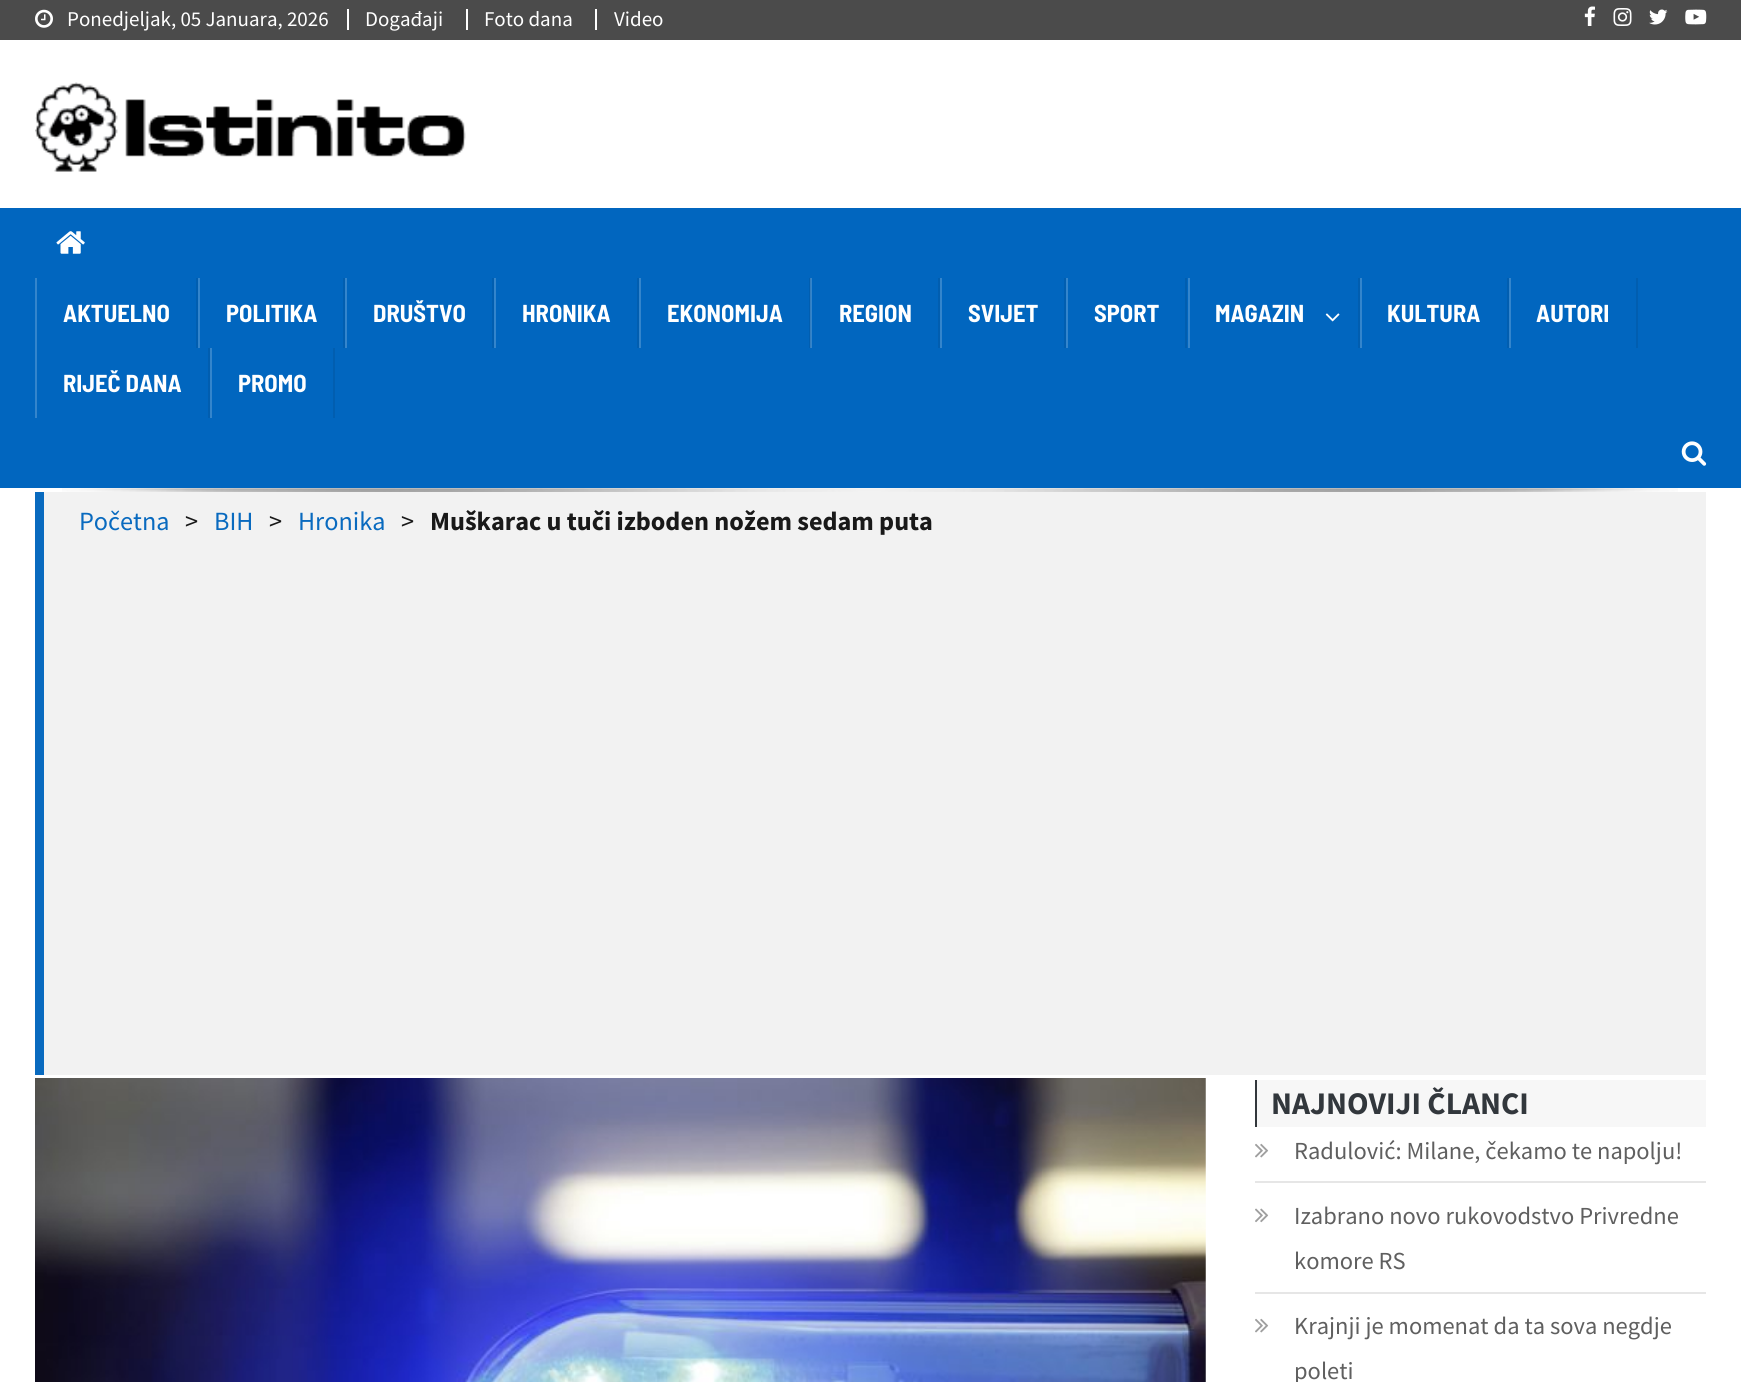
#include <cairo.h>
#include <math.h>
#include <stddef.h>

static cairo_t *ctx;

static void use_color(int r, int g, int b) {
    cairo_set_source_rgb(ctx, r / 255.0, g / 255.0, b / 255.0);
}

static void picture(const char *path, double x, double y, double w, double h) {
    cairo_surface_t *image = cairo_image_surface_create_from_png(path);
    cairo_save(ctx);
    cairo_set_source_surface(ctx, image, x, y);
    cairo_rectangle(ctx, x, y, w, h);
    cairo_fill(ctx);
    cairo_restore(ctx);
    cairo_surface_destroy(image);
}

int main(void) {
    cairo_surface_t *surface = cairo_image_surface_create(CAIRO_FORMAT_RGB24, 1741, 1382);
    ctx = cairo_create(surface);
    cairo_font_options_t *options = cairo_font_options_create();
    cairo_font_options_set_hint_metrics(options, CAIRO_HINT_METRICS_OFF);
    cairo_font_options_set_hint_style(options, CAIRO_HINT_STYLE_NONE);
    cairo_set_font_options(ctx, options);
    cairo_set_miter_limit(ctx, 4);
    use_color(255, 255, 255);
    cairo_paint(ctx);
    use_color(75, 75, 75);
    cairo_rectangle(ctx, 0, 0, 1741, 40);
    cairo_fill(ctx);
    picture("img1.png", 35, 9, 18, 19);
    cairo_select_font_face(ctx, "Source Sans Pro", CAIRO_FONT_SLANT_NORMAL, CAIRO_FONT_WEIGHT_NORMAL);
    cairo_set_font_size(ctx, 21);
    use_color(255, 255, 255);
    cairo_move_to(ctx, 67, 26);
    cairo_show_text(ctx, "Ponedjeljak, 05 Januara, 2026");
    cairo_rectangle(ctx, 347, 9, 2, 21);
    cairo_fill(ctx);
    cairo_move_to(ctx, 365, 26);
    cairo_show_text(ctx, "Događaji");
    cairo_rectangle(ctx, 466, 9, 2, 21);
    cairo_fill(ctx);
    cairo_move_to(ctx, 484, 26);
    cairo_show_text(ctx, "Foto dana");
    cairo_rectangle(ctx, 595, 9, 2, 21);
    cairo_fill(ctx);
    cairo_move_to(ctx, 614, 26);
    cairo_show_text(ctx, "Video");
    picture("img2.png", 1584, 6, 11, 20);
    picture("img3.png", 1613, 8, 19, 18);
    picture("img4.png", 1649, 9, 19, 16);
    picture("img5.png", 1685, 9, 22, 16);
    picture("img6.png", 35, 82, 431, 90);
    use_color(1, 102, 191);
    cairo_rectangle(ctx, 0, 208, 1741, 280);
    cairo_fill(ctx);
    use_color(52, 133, 204);
    cairo_rectangle(ctx, 811, 278, 1, 70);
    cairo_fill(ctx);
    picture("img7.png", 56, 231, 29, 23);
    use_color(1, 94, 176);
    cairo_rectangle(ctx, 196, 278, 2, 70);
    cairo_fill(ctx);
    use_color(52, 133, 204);
    cairo_rectangle(ctx, 35, 278, 2, 140);
    cairo_fill(ctx);
    cairo_select_font_face(ctx, "Barlow Semi Condensed", CAIRO_FONT_SLANT_NORMAL, CAIRO_FONT_WEIGHT_BOLD);
    cairo_set_font_size(ctx, 24.5);
    use_color(255, 255, 255);
    cairo_move_to(ctx, 63, 322);
    cairo_show_text(ctx, "AKTUELNO");
    use_color(1, 94, 176);
    cairo_rectangle(ctx, 343, 278, 2, 70);
    cairo_fill(ctx);
    use_color(52, 133, 204);
    cairo_rectangle(ctx, 198, 278, 2, 70);
    cairo_fill(ctx);
    use_color(255, 255, 255);
    cairo_move_to(ctx, 226, 322);
    cairo_show_text(ctx, "POLITIKA");
    use_color(1, 94, 176);
    cairo_rectangle(ctx, 492, 278, 2, 70);
    cairo_fill(ctx);
    use_color(52, 133, 204);
    cairo_rectangle(ctx, 345, 278, 2, 70);
    cairo_fill(ctx);
    use_color(255, 255, 255);
    cairo_move_to(ctx, 373, 322);
    cairo_show_text(ctx, "DRUŠTVO");
    use_color(1, 94, 176);
    cairo_rectangle(ctx, 637, 278, 2, 70);
    cairo_fill(ctx);
    use_color(52, 133, 204);
    cairo_rectangle(ctx, 494, 278, 2, 70);
    cairo_fill(ctx);
    use_color(255, 255, 255);
    cairo_move_to(ctx, 522, 322);
    cairo_show_text(ctx, "HRONIKA");
    use_color(1, 94, 176);
    cairo_rectangle(ctx, 809, 278, 1, 70);
    cairo_fill(ctx);
    use_color(52, 126, 192);
    cairo_rectangle(ctx, 810, 278, 1, 70);
    cairo_fill(ctx);
    use_color(52, 133, 204);
    cairo_rectangle(ctx, 639, 278, 2, 70);
    cairo_fill(ctx);
    use_color(255, 255, 255);
    cairo_move_to(ctx, 667, 322);
    cairo_show_text(ctx, "EKONOMIJA");
    use_color(1, 94, 176);
    cairo_rectangle(ctx, 938, 278, 2, 70);
    cairo_fill(ctx);
    use_color(255, 255, 255);
    cairo_move_to(ctx, 839, 322);
    cairo_show_text(ctx, "REGION");
    use_color(1, 94, 176);
    cairo_rectangle(ctx, 1064, 278, 2, 70);
    cairo_fill(ctx);
    use_color(52, 133, 204);
    cairo_rectangle(ctx, 940, 278, 2, 70);
    cairo_fill(ctx);
    use_color(255, 255, 255);
    cairo_move_to(ctx, 968, 322);
    cairo_show_text(ctx, "SVIJET");
    use_color(1, 94, 176);
    cairo_rectangle(ctx, 1185, 278, 2, 70);
    cairo_fill(ctx);
    use_color(52, 133, 204);
    cairo_rectangle(ctx, 1066, 278, 2, 70);
    cairo_fill(ctx);
    use_color(255, 255, 255);
    cairo_move_to(ctx, 1094, 322);
    cairo_show_text(ctx, "SPORT");
    use_color(1, 94, 176);
    cairo_rectangle(ctx, 1358, 278, 2, 70);
    cairo_fill(ctx);
    use_color(52, 133, 204);
    cairo_rectangle(ctx, 1188, 278, 2, 70);
    cairo_fill(ctx);
    use_color(255, 255, 255);
    cairo_move_to(ctx, 1215, 322);
    cairo_show_text(ctx, "MAGAZIN");
    picture("img8.png", 1325, 313, 15, 9);
    use_color(1, 94, 176);
    cairo_rectangle(ctx, 1507, 278, 2, 70);
    cairo_fill(ctx);
    use_color(52, 133, 204);
    cairo_rectangle(ctx, 1360, 278, 2, 70);
    cairo_fill(ctx);
    use_color(255, 255, 255);
    cairo_move_to(ctx, 1387, 322);
    cairo_show_text(ctx, "KULTURA");
    use_color(1, 94, 176);
    cairo_rectangle(ctx, 1636, 278, 2, 70);
    cairo_fill(ctx);
    use_color(52, 133, 204);
    cairo_rectangle(ctx, 1509, 278, 2, 70);
    cairo_fill(ctx);
    use_color(255, 255, 255);
    cairo_move_to(ctx, 1536, 322);
    cairo_show_text(ctx, "AUTORI");
    use_color(1, 94, 176);
    cairo_rectangle(ctx, 208, 348, 2, 70);
    cairo_fill(ctx);
    use_color(255, 255, 255);
    cairo_move_to(ctx, 63, 392);
    cairo_show_text(ctx, "RIJEČ DANA");
    use_color(1, 94, 176);
    cairo_rectangle(ctx, 333, 348, 2, 70);
    cairo_fill(ctx);
    use_color(52, 133, 204);
    cairo_rectangle(ctx, 210, 348, 2, 70);
    cairo_fill(ctx);
    use_color(255, 255, 255);
    cairo_move_to(ctx, 238, 392);
    cairo_show_text(ctx, "PROMO");
    picture("img9.png", 1681, 441, 26, 25);
    picture("img10.png", 62, 488, 1616, 4);
    use_color(242, 242, 242);
    cairo_rectangle(ctx, 44, 492, 1662, 583);
    cairo_fill(ctx);
    use_color(9, 106, 191);
    cairo_rectangle(ctx, 35, 492, 9, 583);
    cairo_fill(ctx);
    cairo_select_font_face(ctx, "Source Sans Pro", CAIRO_FONT_SLANT_NORMAL, CAIRO_FONT_WEIGHT_NORMAL);
    cairo_set_font_size(ctx, 26.25);
    cairo_move_to(ctx, 79, 530);
    cairo_show_text(ctx, "Početna");
    use_color(25, 25, 25);
    cairo_move_to(ctx, 185, 530);
    cairo_show_text(ctx, ">");
    use_color(9, 106, 191);
    cairo_move_to(ctx, 214, 530);
    cairo_show_text(ctx, "BIH");
    use_color(25, 25, 25);
    cairo_move_to(ctx, 269, 530);
    cairo_show_text(ctx, ">");
    use_color(9, 106, 191);
    cairo_move_to(ctx, 298, 530);
    cairo_show_text(ctx, "Hronika");
    use_color(25, 25, 25);
    cairo_move_to(ctx, 401, 530);
    cairo_show_text(ctx, ">");
    cairo_select_font_face(ctx, "Source Sans Pro", CAIRO_FONT_SLANT_NORMAL, CAIRO_FONT_WEIGHT_BOLD);
    cairo_move_to(ctx, 430, 530);
    cairo_show_text(ctx, "Muškarac u tuči izboden nožem sedam puta");
    picture("img11.png", 35, 1078, 1171, 304);
    use_color(247, 247, 247);
    cairo_rectangle(ctx, 1257, 1080, 449, 47);
    cairo_fill(ctx);
    use_color(50, 55, 60);
    cairo_rectangle(ctx, 1255, 1080, 2, 47);
    cairo_fill(ctx);
    cairo_set_font_size(ctx, 31.5);
    cairo_move_to(ctx, 1271, 1114);
    cairo_show_text(ctx, "NAJNOVIJI ČLANCI");
    use_color(230, 230, 230);
    cairo_rectangle(ctx, 1255, 1181, 451, 2);
    cairo_fill(ctx);
    picture("img12.png", 1255, 1143, 14, 15);
    cairo_select_font_face(ctx, "Source Sans Pro", CAIRO_FONT_SLANT_NORMAL, CAIRO_FONT_WEIGHT_NORMAL);
    cairo_set_font_size(ctx, 24.5);
    use_color(95, 95, 95);
    cairo_move_to(ctx, 1294, 1159);
    cairo_show_text(ctx, "Radulović: Milane, čekamo te napolju!");
    use_color(230, 230, 230);
    cairo_rectangle(ctx, 1255, 1292, 451, 2);
    cairo_fill(ctx);
    picture("img13.png", 1255, 1208, 14, 15);
    use_color(95, 95, 95);
    cairo_move_to(ctx, 1294, 1224);
    cairo_show_text(ctx, "Izabrano novo rukovodstvo Privredne");
    cairo_move_to(ctx, 1294, 1269);
    cairo_show_text(ctx, "komore RS");
    picture("img12.png", 1255, 1318, 14, 15);
    cairo_move_to(ctx, 1294, 1334);
    cairo_show_text(ctx, "Krajnji je momenat da ta sova negdje");
    cairo_move_to(ctx, 1294, 1379);
    cairo_show_text(ctx, "poleti");
    cairo_surface_write_to_png(surface, "result.png");
    cairo_font_options_destroy(options);
    cairo_destroy(ctx);
    cairo_surface_destroy(surface);
    return 0;
}
